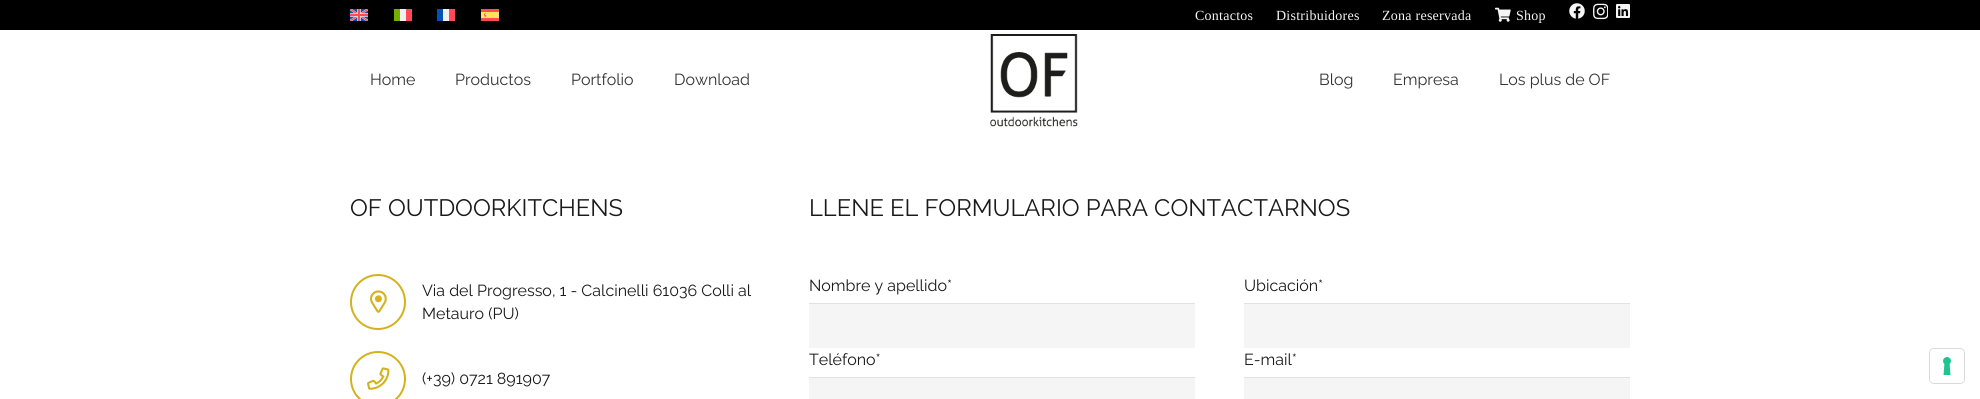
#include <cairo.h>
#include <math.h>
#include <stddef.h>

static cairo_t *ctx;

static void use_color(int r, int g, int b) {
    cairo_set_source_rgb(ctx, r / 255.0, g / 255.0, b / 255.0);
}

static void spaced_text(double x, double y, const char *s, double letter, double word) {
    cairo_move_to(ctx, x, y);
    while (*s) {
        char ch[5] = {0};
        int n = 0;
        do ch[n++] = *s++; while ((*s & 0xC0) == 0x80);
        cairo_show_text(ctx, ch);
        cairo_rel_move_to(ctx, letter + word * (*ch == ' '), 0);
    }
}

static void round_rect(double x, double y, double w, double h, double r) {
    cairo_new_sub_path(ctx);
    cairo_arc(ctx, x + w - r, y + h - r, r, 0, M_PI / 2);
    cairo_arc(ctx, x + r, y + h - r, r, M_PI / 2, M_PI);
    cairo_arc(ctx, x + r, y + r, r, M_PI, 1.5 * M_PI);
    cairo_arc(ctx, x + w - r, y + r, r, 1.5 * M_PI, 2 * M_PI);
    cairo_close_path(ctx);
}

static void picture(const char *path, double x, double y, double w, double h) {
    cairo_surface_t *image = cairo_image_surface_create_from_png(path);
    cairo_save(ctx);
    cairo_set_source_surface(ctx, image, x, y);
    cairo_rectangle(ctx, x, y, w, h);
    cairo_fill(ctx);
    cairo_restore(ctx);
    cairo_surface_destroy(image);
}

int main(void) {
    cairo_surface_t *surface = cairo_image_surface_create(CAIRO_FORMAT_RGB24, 1980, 399);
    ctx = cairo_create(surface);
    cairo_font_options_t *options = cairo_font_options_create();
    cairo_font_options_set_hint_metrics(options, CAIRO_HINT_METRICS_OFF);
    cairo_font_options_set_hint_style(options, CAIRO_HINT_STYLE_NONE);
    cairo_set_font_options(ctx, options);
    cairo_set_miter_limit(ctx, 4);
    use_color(255, 255, 255);
    cairo_paint(ctx);
    use_color(0, 0, 0);
    cairo_rectangle(ctx, 0, 0, 1980, 30);
    cairo_fill(ctx);
    picture("img1.png", 350, 9, 18, 12);
    use_color(240, 240, 240);
    cairo_rectangle(ctx, 400, 9, 6, 12);
    cairo_fill(ctx);
    use_color(255, 75, 85);
    cairo_rectangle(ctx, 406, 9, 6, 12);
    cairo_fill(ctx);
    use_color(115, 175, 0);
    cairo_rectangle(ctx, 394, 9, 6, 12);
    cairo_fill(ctx);
    use_color(240, 240, 240);
    cairo_rectangle(ctx, 443, 9, 6, 12);
    cairo_fill(ctx);
    use_color(255, 75, 85);
    cairo_rectangle(ctx, 449, 9, 6, 12);
    cairo_fill(ctx);
    use_color(0, 82, 180);
    cairo_rectangle(ctx, 437, 9, 6, 12);
    cairo_fill(ctx);
    picture("img2.png", 481, 9, 18, 12);
    cairo_select_font_face(ctx, "Liberation Serif", CAIRO_FONT_SLANT_NORMAL, CAIRO_FONT_WEIGHT_NORMAL);
    cairo_set_font_size(ctx, 14);
    use_color(245, 245, 245);
    spaced_text(1195, 20, "Contactos", 0.25, 0);
    spaced_text(1276, 20, "Distribuidores", 0.25, 0);
    spaced_text(1382, 20, "Zona reservada", 0.25, 0);
    picture("img3.png", 1495, 7, 16, 15);
    spaced_text(1516, 20, "Shop", 0.25, 0);
    picture("img4.png", 1569, 3, 16, 16);
    picture("img5.png", 1593, 3, 15, 17);
    picture("img6.png", 1616, 4, 14, 14);
    cairo_select_font_face(ctx, "Raleway", CAIRO_FONT_SLANT_NORMAL, CAIRO_FONT_WEIGHT_NORMAL);
    cairo_set_font_size(ctx, 16);
    use_color(51, 51, 51);
    cairo_move_to(ctx, 370, 85);
    cairo_show_text(ctx, "Home");
    cairo_move_to(ctx, 455, 85);
    cairo_show_text(ctx, "Productos");
    cairo_move_to(ctx, 571, 85);
    cairo_show_text(ctx, "Portfolio");
    cairo_move_to(ctx, 674, 85);
    cairo_show_text(ctx, "Download");
    picture("img7.png", 990, 34, 88, 93);
    cairo_move_to(ctx, 1319, 85);
    cairo_show_text(ctx, "Blog");
    cairo_move_to(ctx, 1393, 85);
    cairo_show_text(ctx, "Empresa");
    cairo_move_to(ctx, 1499, 85);
    cairo_show_text(ctx, "Los plus de OF");
    cairo_set_font_size(ctx, 23.75);
    use_color(26, 26, 26);
    cairo_move_to(ctx, 350, 216);
    cairo_show_text(ctx, "OF OUTDOORKITCHENS");
    cairo_new_path(ctx);
    cairo_arc(ctx, 378, 302, 27, 0, 2 * M_PI);
    use_color(212, 178, 30);
    cairo_stroke(ctx);
    picture("img8.png", 370, 290, 17, 23);
    cairo_set_font_size(ctx, 16);
    use_color(26, 26, 26);
    cairo_move_to(ctx, 422, 296);
    cairo_show_text(ctx, "Via del Progresso, 1 - Calcinelli 61036 Colli al");
    cairo_move_to(ctx, 422, 319);
    cairo_show_text(ctx, "Metauro (PU)");
    cairo_new_path(ctx);
    cairo_arc(ctx, 378, 379, 27, 0, 2 * M_PI);
    use_color(212, 178, 30);
    cairo_stroke(ctx);
    picture("img9.png", 367, 367, 23, 23);
    use_color(26, 26, 26);
    cairo_move_to(ctx, 422, 384);
    cairo_show_text(ctx, "(+39) 0721 891907");
    cairo_set_font_size(ctx, 23.75);
    cairo_move_to(ctx, 809, 216);
    cairo_show_text(ctx, "LLENE EL FORMULARIO PARA CONTACTARNOS");
    cairo_set_font_size(ctx, 16);
    cairo_move_to(ctx, 809, 291);
    cairo_show_text(ctx, "Nombre y apellido*");
    use_color(245, 245, 245);
    cairo_rectangle(ctx, 809, 304, 386, 44);
    cairo_fill(ctx);
    use_color(225, 225, 225);
    cairo_rectangle(ctx, 809, 303, 386, 1);
    cairo_fill(ctx);
    use_color(26, 26, 26);
    cairo_move_to(ctx, 1244, 291);
    cairo_show_text(ctx, "Ubicación*");
    use_color(245, 245, 245);
    cairo_rectangle(ctx, 1244, 304, 386, 44);
    cairo_fill(ctx);
    use_color(225, 225, 225);
    cairo_rectangle(ctx, 1244, 303, 386, 1);
    cairo_fill(ctx);
    use_color(26, 26, 26);
    cairo_move_to(ctx, 809, 365);
    cairo_show_text(ctx, "Teléfono*");
    use_color(245, 245, 245);
    cairo_rectangle(ctx, 809, 378, 386, 21);
    cairo_fill(ctx);
    use_color(225, 225, 225);
    cairo_rectangle(ctx, 809, 377, 386, 1);
    cairo_fill(ctx);
    use_color(26, 26, 26);
    cairo_move_to(ctx, 1244, 365);
    cairo_show_text(ctx, "E-mail*");
    use_color(245, 245, 245);
    cairo_rectangle(ctx, 1244, 378, 386, 21);
    cairo_fill(ctx);
    use_color(225, 225, 225);
    cairo_rectangle(ctx, 1244, 377, 386, 1);
    cairo_fill(ctx);
    round_rect(1929.5, 348.5, 35, 35, 4.5);
    use_color(217, 217, 217);
    cairo_set_line_width(ctx, 1);
    cairo_stroke(ctx);
    use_color(255, 255, 255);
    round_rect(1930, 349, 34, 34, 4);
    cairo_fill(ctx);
    picture("img10.png", 1943, 357, 8, 18);
    cairo_surface_write_to_png(surface, "result.png");
    cairo_font_options_destroy(options);
    cairo_destroy(ctx);
    cairo_surface_destroy(surface);
    return 0;
}
